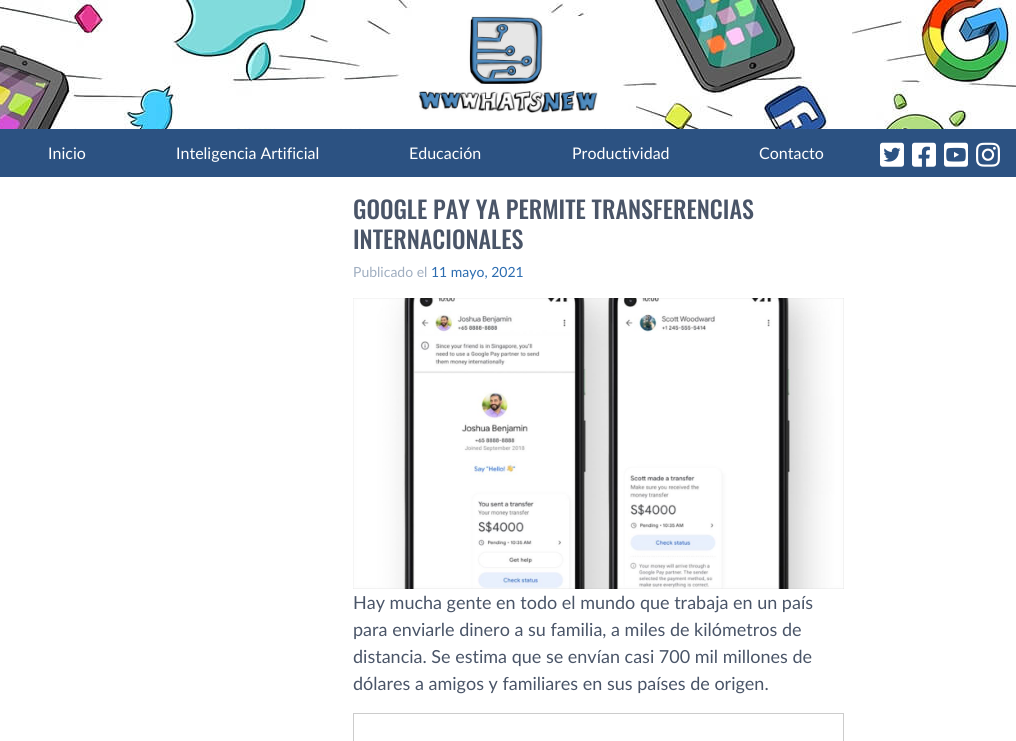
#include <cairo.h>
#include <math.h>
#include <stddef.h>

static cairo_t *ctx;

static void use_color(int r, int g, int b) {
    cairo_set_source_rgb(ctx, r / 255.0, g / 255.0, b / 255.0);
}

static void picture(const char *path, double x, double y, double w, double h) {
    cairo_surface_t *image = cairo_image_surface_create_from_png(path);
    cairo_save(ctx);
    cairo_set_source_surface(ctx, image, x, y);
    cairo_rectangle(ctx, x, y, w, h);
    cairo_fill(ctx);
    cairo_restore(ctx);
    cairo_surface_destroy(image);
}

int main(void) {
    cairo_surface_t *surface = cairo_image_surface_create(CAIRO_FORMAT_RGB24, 1016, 741);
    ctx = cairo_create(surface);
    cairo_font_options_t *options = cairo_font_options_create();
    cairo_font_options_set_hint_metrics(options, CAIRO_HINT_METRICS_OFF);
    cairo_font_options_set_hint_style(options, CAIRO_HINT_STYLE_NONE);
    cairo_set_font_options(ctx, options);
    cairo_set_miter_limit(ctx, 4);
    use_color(255, 255, 255);
    cairo_paint(ctx);
    picture("img1.png", 0, 0, 1016, 129);
    picture("img2.png", 418, 16, 180, 97);
    use_color(44, 82, 130);
    cairo_rectangle(ctx, 0, 129, 1016, 48);
    cairo_fill(ctx);
    cairo_select_font_face(ctx, "Lato", CAIRO_FONT_SLANT_NORMAL, CAIRO_FONT_WEIGHT_NORMAL);
    cairo_set_font_size(ctx, 16);
    use_color(255, 255, 255);
    cairo_move_to(ctx, 48, 159);
    cairo_show_text(ctx, "Inicio");
    cairo_move_to(ctx, 176, 159);
    cairo_show_text(ctx, "Inteligencia Artificial");
    cairo_move_to(ctx, 409, 159);
    cairo_show_text(ctx, "Educación");
    cairo_move_to(ctx, 572, 159);
    cairo_show_text(ctx, "Productividad");
    cairo_move_to(ctx, 759, 159);
    cairo_show_text(ctx, "Contacto");
    picture("img3.png", 880, 142, 24, 25);
    picture("img4.png", 912, 142, 24, 25);
    picture("img5.png", 944, 142, 24, 25);
    picture("img6.png", 976, 142, 24, 25);
    cairo_select_font_face(ctx, "Oswald Medium", CAIRO_FONT_SLANT_NORMAL, CAIRO_FONT_WEIGHT_NORMAL);
    cairo_set_font_size(ctx, 24);
    use_color(74, 85, 104);
    cairo_move_to(ctx, 353, 219);
    cairo_show_text(ctx, "GOOGLE PAY YA PERMITE TRANSFERENCIAS");
    cairo_move_to(ctx, 353, 249);
    cairo_show_text(ctx, "INTERNACIONALES");
    cairo_select_font_face(ctx, "Lato", CAIRO_FONT_SLANT_NORMAL, CAIRO_FONT_WEIGHT_NORMAL);
    cairo_set_font_size(ctx, 14);
    use_color(160, 174, 192);
    cairo_move_to(ctx, 353, 277);
    cairo_show_text(ctx, "Publicado el");
    use_color(43, 108, 176);
    cairo_move_to(ctx, 431, 277);
    cairo_show_text(ctx, "11 mayo, 2021");
    picture("img7.png", 353, 298, 491, 291);
    cairo_set_font_size(ctx, 18);
    use_color(74, 85, 104);
    cairo_move_to(ctx, 353, 609);
    cairo_show_text(ctx, "Hay mucha gente en todo el mundo que trabaja en un país");
    cairo_move_to(ctx, 353, 636);
    cairo_show_text(ctx, "para enviarle dinero a su familia, a miles de kilómetros de");
    cairo_move_to(ctx, 353, 663);
    cairo_show_text(ctx, "distancia. Se estima que se envían casi 700 mil millones de");
    cairo_move_to(ctx, 353, 690);
    cairo_show_text(ctx, "dólares a amigos y familiares en sus países de origen.");
    cairo_rectangle(ctx, 353.5, 713.5, 490, 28);
    use_color(204, 204, 204);
    cairo_set_line_width(ctx, 1);
    cairo_stroke(ctx);
    cairo_surface_write_to_png(surface, "result.png");
    cairo_font_options_destroy(options);
    cairo_destroy(ctx);
    cairo_surface_destroy(surface);
    return 0;
}
